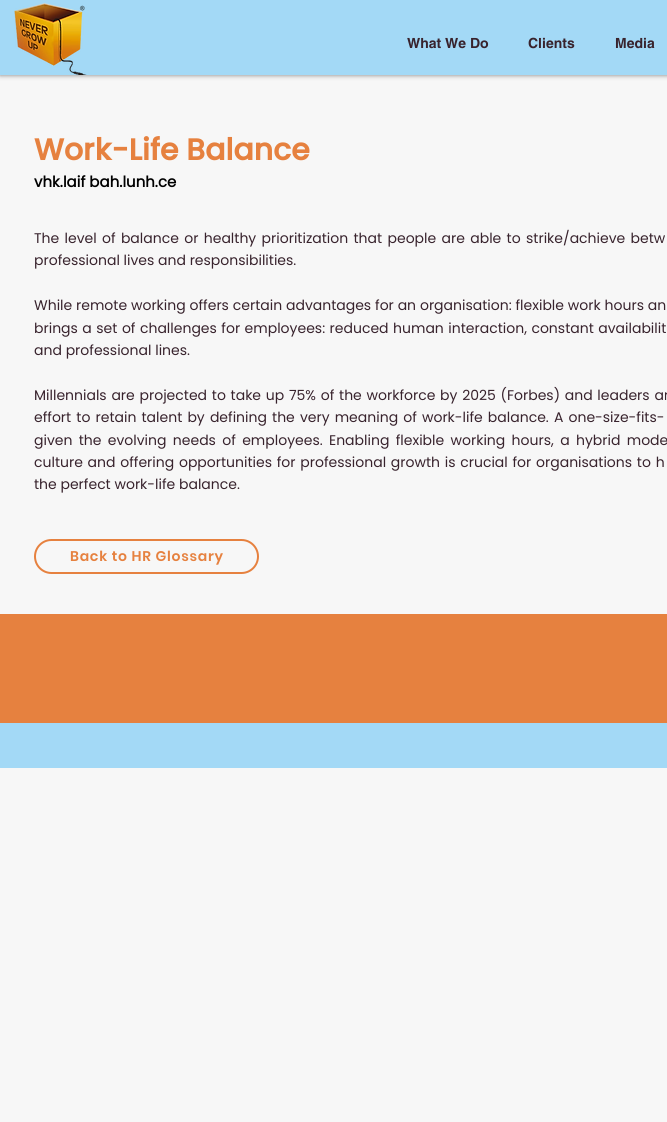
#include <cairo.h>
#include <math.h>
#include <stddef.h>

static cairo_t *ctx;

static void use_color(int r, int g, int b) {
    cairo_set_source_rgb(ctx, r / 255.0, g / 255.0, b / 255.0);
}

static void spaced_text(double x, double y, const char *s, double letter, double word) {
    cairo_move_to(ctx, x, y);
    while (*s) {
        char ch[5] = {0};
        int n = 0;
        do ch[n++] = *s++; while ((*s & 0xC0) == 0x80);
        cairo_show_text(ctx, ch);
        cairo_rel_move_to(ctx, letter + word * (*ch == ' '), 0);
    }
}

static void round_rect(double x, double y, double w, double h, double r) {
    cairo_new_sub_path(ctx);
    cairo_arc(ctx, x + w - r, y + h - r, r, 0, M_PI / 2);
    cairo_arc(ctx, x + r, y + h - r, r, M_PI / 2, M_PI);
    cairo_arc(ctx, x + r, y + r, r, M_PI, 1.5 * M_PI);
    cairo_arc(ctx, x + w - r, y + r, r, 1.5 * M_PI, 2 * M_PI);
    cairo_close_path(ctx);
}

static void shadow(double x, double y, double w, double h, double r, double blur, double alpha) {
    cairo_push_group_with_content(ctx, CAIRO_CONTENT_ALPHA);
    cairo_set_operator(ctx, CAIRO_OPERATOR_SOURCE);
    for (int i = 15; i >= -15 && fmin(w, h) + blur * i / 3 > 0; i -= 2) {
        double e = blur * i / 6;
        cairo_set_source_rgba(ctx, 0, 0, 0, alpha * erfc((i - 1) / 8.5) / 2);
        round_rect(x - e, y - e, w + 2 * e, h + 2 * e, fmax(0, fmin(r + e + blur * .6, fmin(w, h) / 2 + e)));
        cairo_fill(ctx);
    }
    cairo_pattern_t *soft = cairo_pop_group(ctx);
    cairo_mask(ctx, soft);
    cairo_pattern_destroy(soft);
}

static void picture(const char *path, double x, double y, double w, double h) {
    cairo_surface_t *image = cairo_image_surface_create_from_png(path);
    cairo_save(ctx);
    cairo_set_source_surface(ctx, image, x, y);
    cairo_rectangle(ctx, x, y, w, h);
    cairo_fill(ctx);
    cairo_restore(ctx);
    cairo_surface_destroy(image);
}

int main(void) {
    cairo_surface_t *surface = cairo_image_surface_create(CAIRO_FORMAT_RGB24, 667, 1122);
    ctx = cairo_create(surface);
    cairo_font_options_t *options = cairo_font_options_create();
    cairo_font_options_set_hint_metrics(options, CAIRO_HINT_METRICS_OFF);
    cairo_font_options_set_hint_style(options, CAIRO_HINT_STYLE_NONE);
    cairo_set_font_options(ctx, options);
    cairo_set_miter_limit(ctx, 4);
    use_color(247, 247, 247);
    cairo_paint(ctx);
    use_color(0, 0, 0);
    shadow(0, 0, 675, 75, 0, 2.5, 0.5);
    use_color(163, 217, 246);
    cairo_rectangle(ctx, 0, 0, 667, 75);
    cairo_fill(ctx);
    picture("img1.png", 14, 3, 73, 72);
    cairo_select_font_face(ctx, "helvetica", CAIRO_FONT_SLANT_NORMAL, CAIRO_FONT_WEIGHT_BOLD);
    cairo_set_font_size(ctx, 14);
    use_color(56, 35, 45);
    cairo_move_to(ctx, 407, 48);
    cairo_show_text(ctx, "What We Do");
    cairo_move_to(ctx, 528, 48);
    cairo_show_text(ctx, "Clients");
    cairo_move_to(ctx, 615, 48);
    cairo_show_text(ctx, "Media");
    cairo_select_font_face(ctx, "Poppins", CAIRO_FONT_SLANT_NORMAL, CAIRO_FONT_WEIGHT_BOLD);
    cairo_set_font_size(ctx, 30);
    use_color(230, 129, 63);
    cairo_move_to(ctx, 34, 160);
    cairo_show_text(ctx, "Work-Life Balance");
    cairo_select_font_face(ctx, "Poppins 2", CAIRO_FONT_SLANT_NORMAL, CAIRO_FONT_WEIGHT_BOLD);
    cairo_set_font_size(ctx, 15);
    use_color(0, 0, 0);
    cairo_move_to(ctx, 34, 187);
    cairo_show_text(ctx, "vhk.laif bah.lunh.ce");
    cairo_select_font_face(ctx, "Poppins", CAIRO_FONT_SLANT_NORMAL, CAIRO_FONT_WEIGHT_NORMAL);
    cairo_set_font_size(ctx, 14);
    use_color(56, 35, 45);
    spaced_text(34, 243, "The level of balance or healthy prioritization that people are able to strike/achieve betw", 0, 1.6);
    cairo_move_to(ctx, 34, 265);
    cairo_show_text(ctx, "professional lives and responsibilities.");
    spaced_text(34, 310, "While remote working offers certain advantages for an organisation: flexible work hours an", 0, 0.1);
    spaced_text(34, 333, "brings a set of challenges for employees: reduced human interaction, constant availabilit", 0, 0.75);
    cairo_move_to(ctx, 34, 355);
    cairo_show_text(ctx, "and professional lines.");
    spaced_text(34, 400, "Millennials are projected to take up 75% of the workforce by 2025 (Forbes) and leaders ar", 0, 1);
    spaced_text(34, 422, "effort to retain talent by defining the very meaning of work-life balance. A one-size-fits-", 0, 1.4);
    spaced_text(34, 445, "given the evolving needs of employees. Enabling flexible working hours, a hybrid mode", 0, 2.6);
    spaced_text(34, 467, "culture and offering opportunities for professional growth is crucial for organisations to h", 0, 1);
    cairo_move_to(ctx, 34, 489);
    cairo_show_text(ctx, "the perfect work-life balance.");
    round_rect(35, 540, 223, 33, 16.5);
    use_color(230, 129, 63);
    cairo_stroke(ctx);
    cairo_select_font_face(ctx, "Poppins SemiBold", CAIRO_FONT_SLANT_NORMAL, CAIRO_FONT_WEIGHT_NORMAL);
    spaced_text(70, 561, "Back to HR Glossary", 0.75, 0);
    cairo_rectangle(ctx, 0, 614, 667, 109);
    cairo_fill(ctx);
    use_color(163, 217, 246);
    cairo_rectangle(ctx, 0, 723, 667, 45);
    cairo_fill(ctx);
    cairo_surface_write_to_png(surface, "result.png");
    cairo_font_options_destroy(options);
    cairo_destroy(ctx);
    cairo_surface_destroy(surface);
    return 0;
}
